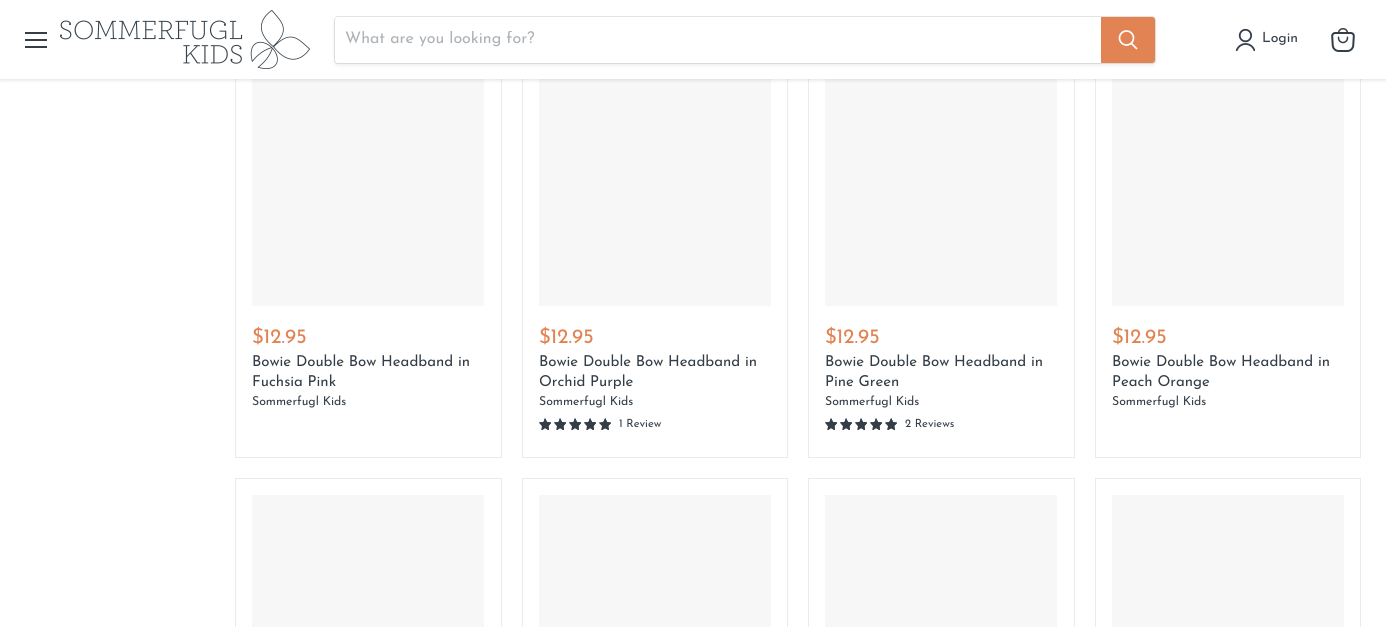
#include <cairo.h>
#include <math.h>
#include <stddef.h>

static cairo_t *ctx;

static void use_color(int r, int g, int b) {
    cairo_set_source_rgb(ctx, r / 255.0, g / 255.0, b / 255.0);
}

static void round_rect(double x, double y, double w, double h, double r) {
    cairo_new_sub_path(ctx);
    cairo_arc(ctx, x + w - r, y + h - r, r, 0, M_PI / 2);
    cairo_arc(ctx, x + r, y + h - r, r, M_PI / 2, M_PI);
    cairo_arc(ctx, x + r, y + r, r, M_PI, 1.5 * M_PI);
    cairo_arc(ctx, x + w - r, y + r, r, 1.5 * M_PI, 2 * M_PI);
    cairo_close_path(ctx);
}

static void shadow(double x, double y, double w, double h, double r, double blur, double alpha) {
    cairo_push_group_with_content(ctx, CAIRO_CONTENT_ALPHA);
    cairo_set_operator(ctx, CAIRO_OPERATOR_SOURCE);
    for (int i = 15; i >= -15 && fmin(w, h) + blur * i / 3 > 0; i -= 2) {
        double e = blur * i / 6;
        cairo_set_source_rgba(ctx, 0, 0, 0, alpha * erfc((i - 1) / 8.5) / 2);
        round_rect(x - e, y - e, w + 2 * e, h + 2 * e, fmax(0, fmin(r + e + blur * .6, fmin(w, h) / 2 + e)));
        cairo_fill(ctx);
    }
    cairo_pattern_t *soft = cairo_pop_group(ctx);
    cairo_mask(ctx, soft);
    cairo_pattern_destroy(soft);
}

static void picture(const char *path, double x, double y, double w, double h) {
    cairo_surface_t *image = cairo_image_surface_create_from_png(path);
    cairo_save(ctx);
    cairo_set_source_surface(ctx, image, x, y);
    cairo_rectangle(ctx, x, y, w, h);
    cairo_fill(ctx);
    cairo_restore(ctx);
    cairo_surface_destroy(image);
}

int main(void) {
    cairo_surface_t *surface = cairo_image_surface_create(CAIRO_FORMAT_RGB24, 1386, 627);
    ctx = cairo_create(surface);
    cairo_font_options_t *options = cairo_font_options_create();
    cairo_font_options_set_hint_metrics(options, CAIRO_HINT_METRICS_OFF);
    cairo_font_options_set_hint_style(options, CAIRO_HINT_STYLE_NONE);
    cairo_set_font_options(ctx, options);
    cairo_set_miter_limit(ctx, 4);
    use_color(255, 255, 255);
    cairo_paint(ctx);
    cairo_rectangle(ctx, 235.5, 56.5, 266, 401);
    use_color(235, 235, 235);
    cairo_set_line_width(ctx, 1);
    cairo_stroke(ctx);
    use_color(247, 247, 248);
    cairo_rectangle(ctx, 252, 79, 232, 227);
    cairo_fill(ctx);
    cairo_rectangle(ctx, 522.5, 56.5, 265, 401);
    use_color(235, 235, 235);
    cairo_stroke(ctx);
    use_color(247, 247, 248);
    cairo_rectangle(ctx, 539, 79, 232, 227);
    cairo_fill(ctx);
    cairo_rectangle(ctx, 808.5, 56.5, 266, 401);
    use_color(235, 235, 235);
    cairo_stroke(ctx);
    use_color(247, 247, 248);
    cairo_rectangle(ctx, 825, 79, 232, 227);
    cairo_fill(ctx);
    cairo_rectangle(ctx, 1095.5, 56.5, 265, 401);
    use_color(235, 235, 235);
    cairo_stroke(ctx);
    use_color(247, 247, 248);
    cairo_rectangle(ctx, 1112, 79, 232, 227);
    cairo_fill(ctx);
    use_color(128, 128, 128);
    shadow(0, 1, 1386, 79, 0, 2, 0.25);
    use_color(255, 255, 255);
    cairo_rectangle(ctx, 0, 0, 1386, 79);
    cairo_fill(ctx);
    use_color(51, 62, 72);
    cairo_rectangle(ctx, 25, 32, 22, 2);
    cairo_fill(ctx);
    cairo_rectangle(ctx, 25, 39, 22, 2);
    cairo_fill(ctx);
    cairo_rectangle(ctx, 25, 46, 22, 2);
    cairo_fill(ctx);
    picture("img1.png", 60, 10, 250, 59);
    use_color(128, 128, 128);
    shadow(334, 18, 822, 48, 4, 1.5, 0.11);
    round_rect(334.5, 16.5, 821, 47, 3.5);
    cairo_set_source_rgba(ctx, 0.502, 0.502, 0.502, 0.2);
    cairo_stroke(ctx);
    use_color(255, 255, 255);
    cairo_new_path(ctx);
    cairo_move_to(ctx, 338, 17);
    cairo_line_to(ctx, 1101, 17);
    cairo_line_to(ctx, 1101, 63);
    cairo_line_to(ctx, 338, 63);
    cairo_curve_to(ctx, 336.5, 63, 335, 61.5, 335, 60);
    cairo_line_to(ctx, 335, 20);
    cairo_curve_to(ctx, 335, 18.5, 336.5, 17, 338, 17);
    cairo_close_path(ctx);
    cairo_fill(ctx);
    cairo_save(ctx);
    cairo_rectangle(ctx, 345, 31, 746, 16);
    cairo_clip(ctx);
    cairo_select_font_face(ctx, "Josefin Sans", CAIRO_FONT_SLANT_NORMAL, CAIRO_FONT_WEIGHT_NORMAL);
    cairo_set_font_size(ctx, 16);
    use_color(173, 178, 182);
    cairo_move_to(ctx, 345, 43);
    cairo_show_text(ctx, "What are you looking for?");
    cairo_restore(ctx);
    use_color(225, 131, 83);
    cairo_new_path(ctx);
    cairo_move_to(ctx, 1101.5, 17.5);
    cairo_line_to(ctx, 1152, 17.5);
    cairo_curve_to(ctx, 1153.5, 17.5, 1154.5, 18.5, 1154.5, 20);
    cairo_line_to(ctx, 1154.5, 60);
    cairo_curve_to(ctx, 1154.5, 61.5, 1153.5, 62.5, 1152, 62.5);
    cairo_line_to(ctx, 1101.5, 62.5);
    cairo_close_path(ctx);
    cairo_fill_preserve(ctx);
    cairo_stroke(ctx);
    cairo_new_path(ctx);
    cairo_move_to(ctx, 1136.5, 48.5);
    cairo_line_to(ctx, 1131.5, 43.5);
    use_color(255, 255, 255);
    cairo_set_line_width(ctx, 1.7);
    cairo_set_line_cap(ctx, CAIRO_LINE_CAP_ROUND);
    cairo_stroke(ctx);
    cairo_arc(ctx, 1126.5, 38, 7, 0, 2 * M_PI);
    cairo_set_line_cap(ctx, CAIRO_LINE_CAP_BUTT);
    cairo_stroke(ctx);
    picture("img2.png", 1235, 28, 20, 24);
    cairo_select_font_face(ctx, "Josefin Sans", CAIRO_FONT_SLANT_NORMAL, CAIRO_FONT_WEIGHT_NORMAL);
    cairo_set_font_size(ctx, 14);
    use_color(51, 62, 72);
    cairo_move_to(ctx, 1262, 42);
    cairo_show_text(ctx, "Login");
    picture("img3.png", 1331, 28, 24, 24);
    cairo_set_font_size(ctx, 20.5);
    use_color(225, 131, 83);
    cairo_move_to(ctx, 252, 343);
    cairo_show_text(ctx, "$12.95");
    cairo_set_font_size(ctx, 15);
    use_color(51, 62, 72);
    cairo_move_to(ctx, 252, 366);
    cairo_show_text(ctx, "Bowie Double Bow Headband in");
    cairo_move_to(ctx, 252, 386);
    cairo_show_text(ctx, "Fuchsia Pink");
    cairo_set_font_size(ctx, 12.25);
    cairo_move_to(ctx, 252, 405);
    cairo_show_text(ctx, "Sommerfugl Kids");
    cairo_set_font_size(ctx, 20.5);
    use_color(225, 131, 83);
    cairo_move_to(ctx, 539, 343);
    cairo_show_text(ctx, "$12.95");
    cairo_set_font_size(ctx, 15);
    use_color(51, 62, 72);
    cairo_move_to(ctx, 539, 366);
    cairo_show_text(ctx, "Bowie Double Bow Headband in");
    cairo_move_to(ctx, 539, 386);
    cairo_show_text(ctx, "Orchid Purple");
    cairo_set_font_size(ctx, 12.25);
    cairo_move_to(ctx, 539, 405);
    cairo_show_text(ctx, "Sommerfugl Kids");
    cairo_save(ctx);
    cairo_rectangle(ctx, 539, 418, 12, 12);
    cairo_clip(ctx);
    cairo_new_path(ctx);
    cairo_move_to(ctx, 545, 418);
    cairo_line_to(ctx, 543.5, 422);
    cairo_line_to(ctx, 539, 422.5);
    cairo_line_to(ctx, 542, 426);
    cairo_line_to(ctx, 541.5, 430.5);
    cairo_line_to(ctx, 545, 428);
    cairo_line_to(ctx, 549, 430.5);
    cairo_line_to(ctx, 548.5, 426);
    cairo_line_to(ctx, 551.5, 422.5);
    cairo_line_to(ctx, 547, 422);
    cairo_close_path(ctx);
    cairo_fill(ctx);
    cairo_restore(ctx);
    cairo_save(ctx);
    cairo_rectangle(ctx, 539, 418, 12, 12);
    cairo_clip(ctx);
    cairo_new_path(ctx);
    cairo_move_to(ctx, 545, 418);
    cairo_line_to(ctx, 547, 422);
    cairo_line_to(ctx, 551.5, 422.5);
    cairo_line_to(ctx, 548.5, 426);
    cairo_line_to(ctx, 549, 430.5);
    cairo_line_to(ctx, 545, 428);
    cairo_line_to(ctx, 541.5, 430.5);
    cairo_line_to(ctx, 542, 426);
    cairo_line_to(ctx, 539, 422.5);
    cairo_line_to(ctx, 543.5, 422);
    cairo_close_path(ctx);
    cairo_clip(ctx);
    cairo_new_path(ctx);
    cairo_move_to(ctx, 545, 418);
    cairo_line_to(ctx, 547, 422);
    cairo_line_to(ctx, 551.5, 422.5);
    cairo_line_to(ctx, 548.5, 426);
    cairo_line_to(ctx, 549, 430.5);
    cairo_line_to(ctx, 545, 428);
    cairo_line_to(ctx, 541.5, 430.5);
    cairo_line_to(ctx, 542, 426);
    cairo_line_to(ctx, 539, 422.5);
    cairo_line_to(ctx, 543.5, 422);
    cairo_close_path(ctx);
    cairo_set_line_width(ctx, 1.8);
    cairo_set_line_cap(ctx, CAIRO_LINE_CAP_ROUND);
    cairo_set_line_join(ctx, CAIRO_LINE_JOIN_ROUND);
    cairo_stroke(ctx);
    cairo_restore(ctx);
    cairo_save(ctx);
    cairo_rectangle(ctx, 554, 418, 12, 12);
    cairo_clip(ctx);
    cairo_new_path(ctx);
    cairo_move_to(ctx, 560, 418);
    cairo_line_to(ctx, 558.5, 422);
    cairo_line_to(ctx, 554, 422.5);
    cairo_line_to(ctx, 557, 426);
    cairo_line_to(ctx, 556.5, 430.5);
    cairo_line_to(ctx, 560, 428);
    cairo_line_to(ctx, 564, 430.5);
    cairo_line_to(ctx, 563.5, 426);
    cairo_line_to(ctx, 566.5, 422.5);
    cairo_line_to(ctx, 562, 422);
    cairo_close_path(ctx);
    cairo_fill(ctx);
    cairo_restore(ctx);
    cairo_save(ctx);
    cairo_rectangle(ctx, 554, 418, 12, 12);
    cairo_clip(ctx);
    cairo_new_path(ctx);
    cairo_move_to(ctx, 560, 418);
    cairo_line_to(ctx, 562, 422);
    cairo_line_to(ctx, 566.5, 422.5);
    cairo_line_to(ctx, 563.5, 426);
    cairo_line_to(ctx, 564, 430.5);
    cairo_line_to(ctx, 560, 428);
    cairo_line_to(ctx, 556.5, 430.5);
    cairo_line_to(ctx, 557, 426);
    cairo_line_to(ctx, 554, 422.5);
    cairo_line_to(ctx, 558.5, 422);
    cairo_close_path(ctx);
    cairo_clip(ctx);
    cairo_new_path(ctx);
    cairo_move_to(ctx, 560, 418);
    cairo_line_to(ctx, 562, 422);
    cairo_line_to(ctx, 566.5, 422.5);
    cairo_line_to(ctx, 563.5, 426);
    cairo_line_to(ctx, 564, 430.5);
    cairo_line_to(ctx, 560, 428);
    cairo_line_to(ctx, 556.5, 430.5);
    cairo_line_to(ctx, 557, 426);
    cairo_line_to(ctx, 554, 422.5);
    cairo_line_to(ctx, 558.5, 422);
    cairo_close_path(ctx);
    cairo_set_line_width(ctx, 1.8);
    cairo_set_line_cap(ctx, CAIRO_LINE_CAP_ROUND);
    cairo_set_line_join(ctx, CAIRO_LINE_JOIN_ROUND);
    cairo_stroke(ctx);
    cairo_restore(ctx);
    cairo_save(ctx);
    cairo_rectangle(ctx, 569, 418, 12, 12);
    cairo_clip(ctx);
    cairo_new_path(ctx);
    cairo_move_to(ctx, 575, 418);
    cairo_line_to(ctx, 573.5, 422);
    cairo_line_to(ctx, 569, 422.5);
    cairo_line_to(ctx, 572, 426);
    cairo_line_to(ctx, 571.5, 430.5);
    cairo_line_to(ctx, 575, 428);
    cairo_line_to(ctx, 579, 430.5);
    cairo_line_to(ctx, 578.5, 426);
    cairo_line_to(ctx, 581.5, 422.5);
    cairo_line_to(ctx, 577, 422);
    cairo_close_path(ctx);
    cairo_fill(ctx);
    cairo_restore(ctx);
    cairo_save(ctx);
    cairo_rectangle(ctx, 569, 418, 12, 12);
    cairo_clip(ctx);
    cairo_new_path(ctx);
    cairo_move_to(ctx, 575, 418);
    cairo_line_to(ctx, 577, 422);
    cairo_line_to(ctx, 581.5, 422.5);
    cairo_line_to(ctx, 578.5, 426);
    cairo_line_to(ctx, 579, 430.5);
    cairo_line_to(ctx, 575, 428);
    cairo_line_to(ctx, 571.5, 430.5);
    cairo_line_to(ctx, 572, 426);
    cairo_line_to(ctx, 569, 422.5);
    cairo_line_to(ctx, 573.5, 422);
    cairo_close_path(ctx);
    cairo_clip(ctx);
    cairo_new_path(ctx);
    cairo_move_to(ctx, 575, 418);
    cairo_line_to(ctx, 577, 422);
    cairo_line_to(ctx, 581.5, 422.5);
    cairo_line_to(ctx, 578.5, 426);
    cairo_line_to(ctx, 579, 430.5);
    cairo_line_to(ctx, 575, 428);
    cairo_line_to(ctx, 571.5, 430.5);
    cairo_line_to(ctx, 572, 426);
    cairo_line_to(ctx, 569, 422.5);
    cairo_line_to(ctx, 573.5, 422);
    cairo_close_path(ctx);
    cairo_set_line_width(ctx, 1.8);
    cairo_set_line_cap(ctx, CAIRO_LINE_CAP_ROUND);
    cairo_set_line_join(ctx, CAIRO_LINE_JOIN_ROUND);
    cairo_stroke(ctx);
    cairo_restore(ctx);
    cairo_save(ctx);
    cairo_rectangle(ctx, 584, 418, 12, 12);
    cairo_clip(ctx);
    cairo_new_path(ctx);
    cairo_move_to(ctx, 590, 418);
    cairo_line_to(ctx, 588.5, 422);
    cairo_line_to(ctx, 584, 422.5);
    cairo_line_to(ctx, 587, 426);
    cairo_line_to(ctx, 586.5, 430.5);
    cairo_line_to(ctx, 590, 428);
    cairo_line_to(ctx, 594, 430.5);
    cairo_line_to(ctx, 593.5, 426);
    cairo_line_to(ctx, 596.5, 422.5);
    cairo_line_to(ctx, 592, 422);
    cairo_close_path(ctx);
    cairo_fill(ctx);
    cairo_restore(ctx);
    cairo_save(ctx);
    cairo_rectangle(ctx, 584, 418, 12, 12);
    cairo_clip(ctx);
    cairo_new_path(ctx);
    cairo_move_to(ctx, 590, 418);
    cairo_line_to(ctx, 592, 422);
    cairo_line_to(ctx, 596.5, 422.5);
    cairo_line_to(ctx, 593.5, 426);
    cairo_line_to(ctx, 594, 430.5);
    cairo_line_to(ctx, 590, 428);
    cairo_line_to(ctx, 586.5, 430.5);
    cairo_line_to(ctx, 587, 426);
    cairo_line_to(ctx, 584, 422.5);
    cairo_line_to(ctx, 588.5, 422);
    cairo_close_path(ctx);
    cairo_clip(ctx);
    cairo_new_path(ctx);
    cairo_move_to(ctx, 590, 418);
    cairo_line_to(ctx, 592, 422);
    cairo_line_to(ctx, 596.5, 422.5);
    cairo_line_to(ctx, 593.5, 426);
    cairo_line_to(ctx, 594, 430.5);
    cairo_line_to(ctx, 590, 428);
    cairo_line_to(ctx, 586.5, 430.5);
    cairo_line_to(ctx, 587, 426);
    cairo_line_to(ctx, 584, 422.5);
    cairo_line_to(ctx, 588.5, 422);
    cairo_close_path(ctx);
    cairo_set_line_width(ctx, 1.8);
    cairo_set_line_cap(ctx, CAIRO_LINE_CAP_ROUND);
    cairo_set_line_join(ctx, CAIRO_LINE_JOIN_ROUND);
    cairo_stroke(ctx);
    cairo_restore(ctx);
    picture("img4.png", 599, 418, 12, 12);
    cairo_set_font_size(ctx, 11.25);
    cairo_move_to(ctx, 619, 427);
    cairo_show_text(ctx, "1 Review");
    cairo_set_font_size(ctx, 20.5);
    use_color(225, 131, 83);
    cairo_move_to(ctx, 825, 343);
    cairo_show_text(ctx, "$12.95");
    cairo_set_font_size(ctx, 15);
    use_color(51, 62, 72);
    cairo_move_to(ctx, 825, 366);
    cairo_show_text(ctx, "Bowie Double Bow Headband in");
    cairo_move_to(ctx, 825, 386);
    cairo_show_text(ctx, "Pine Green");
    cairo_set_font_size(ctx, 12.25);
    cairo_move_to(ctx, 825, 405);
    cairo_show_text(ctx, "Sommerfugl Kids");
    cairo_save(ctx);
    cairo_rectangle(ctx, 825, 418, 12, 12);
    cairo_clip(ctx);
    cairo_new_path(ctx);
    cairo_move_to(ctx, 831, 418);
    cairo_line_to(ctx, 829.5, 422);
    cairo_line_to(ctx, 825, 422.5);
    cairo_line_to(ctx, 828, 426);
    cairo_line_to(ctx, 827.5, 430.5);
    cairo_line_to(ctx, 831, 428);
    cairo_line_to(ctx, 835, 430.5);
    cairo_line_to(ctx, 834.5, 426);
    cairo_line_to(ctx, 837.5, 422.5);
    cairo_line_to(ctx, 833, 422);
    cairo_close_path(ctx);
    cairo_fill(ctx);
    cairo_restore(ctx);
    cairo_save(ctx);
    cairo_rectangle(ctx, 825, 418, 12, 12);
    cairo_clip(ctx);
    cairo_new_path(ctx);
    cairo_move_to(ctx, 831, 418);
    cairo_line_to(ctx, 833, 422);
    cairo_line_to(ctx, 837.5, 422.5);
    cairo_line_to(ctx, 834.5, 426);
    cairo_line_to(ctx, 835, 430.5);
    cairo_line_to(ctx, 831, 428);
    cairo_line_to(ctx, 827.5, 430.5);
    cairo_line_to(ctx, 828, 426);
    cairo_line_to(ctx, 825, 422.5);
    cairo_line_to(ctx, 829.5, 422);
    cairo_close_path(ctx);
    cairo_clip(ctx);
    cairo_new_path(ctx);
    cairo_move_to(ctx, 831, 418);
    cairo_line_to(ctx, 833, 422);
    cairo_line_to(ctx, 837.5, 422.5);
    cairo_line_to(ctx, 834.5, 426);
    cairo_line_to(ctx, 835, 430.5);
    cairo_line_to(ctx, 831, 428);
    cairo_line_to(ctx, 827.5, 430.5);
    cairo_line_to(ctx, 828, 426);
    cairo_line_to(ctx, 825, 422.5);
    cairo_line_to(ctx, 829.5, 422);
    cairo_close_path(ctx);
    cairo_set_line_width(ctx, 1.8);
    cairo_set_line_cap(ctx, CAIRO_LINE_CAP_ROUND);
    cairo_set_line_join(ctx, CAIRO_LINE_JOIN_ROUND);
    cairo_stroke(ctx);
    cairo_restore(ctx);
    cairo_save(ctx);
    cairo_rectangle(ctx, 840, 418, 12, 12);
    cairo_clip(ctx);
    cairo_new_path(ctx);
    cairo_move_to(ctx, 846, 418);
    cairo_line_to(ctx, 844.5, 422);
    cairo_line_to(ctx, 840, 422.5);
    cairo_line_to(ctx, 843, 426);
    cairo_line_to(ctx, 842.5, 430.5);
    cairo_line_to(ctx, 846, 428);
    cairo_line_to(ctx, 850, 430.5);
    cairo_line_to(ctx, 849.5, 426);
    cairo_line_to(ctx, 852.5, 422.5);
    cairo_line_to(ctx, 848, 422);
    cairo_close_path(ctx);
    cairo_fill(ctx);
    cairo_restore(ctx);
    cairo_save(ctx);
    cairo_rectangle(ctx, 840, 418, 12, 12);
    cairo_clip(ctx);
    cairo_new_path(ctx);
    cairo_move_to(ctx, 846, 418);
    cairo_line_to(ctx, 848, 422);
    cairo_line_to(ctx, 852.5, 422.5);
    cairo_line_to(ctx, 849.5, 426);
    cairo_line_to(ctx, 850, 430.5);
    cairo_line_to(ctx, 846, 428);
    cairo_line_to(ctx, 842.5, 430.5);
    cairo_line_to(ctx, 843, 426);
    cairo_line_to(ctx, 840, 422.5);
    cairo_line_to(ctx, 844.5, 422);
    cairo_close_path(ctx);
    cairo_clip(ctx);
    cairo_new_path(ctx);
    cairo_move_to(ctx, 846, 418);
    cairo_line_to(ctx, 848, 422);
    cairo_line_to(ctx, 852.5, 422.5);
    cairo_line_to(ctx, 849.5, 426);
    cairo_line_to(ctx, 850, 430.5);
    cairo_line_to(ctx, 846, 428);
    cairo_line_to(ctx, 842.5, 430.5);
    cairo_line_to(ctx, 843, 426);
    cairo_line_to(ctx, 840, 422.5);
    cairo_line_to(ctx, 844.5, 422);
    cairo_close_path(ctx);
    cairo_set_line_width(ctx, 1.8);
    cairo_set_line_cap(ctx, CAIRO_LINE_CAP_ROUND);
    cairo_set_line_join(ctx, CAIRO_LINE_JOIN_ROUND);
    cairo_stroke(ctx);
    cairo_restore(ctx);
    cairo_save(ctx);
    cairo_rectangle(ctx, 855, 418, 12, 12);
    cairo_clip(ctx);
    cairo_new_path(ctx);
    cairo_move_to(ctx, 861, 418);
    cairo_line_to(ctx, 859.5, 422);
    cairo_line_to(ctx, 855, 422.5);
    cairo_line_to(ctx, 858, 426);
    cairo_line_to(ctx, 857.5, 430.5);
    cairo_line_to(ctx, 861, 428);
    cairo_line_to(ctx, 865, 430.5);
    cairo_line_to(ctx, 864.5, 426);
    cairo_line_to(ctx, 867.5, 422.5);
    cairo_line_to(ctx, 863, 422);
    cairo_close_path(ctx);
    cairo_fill(ctx);
    cairo_restore(ctx);
    cairo_save(ctx);
    cairo_rectangle(ctx, 855, 418, 12, 12);
    cairo_clip(ctx);
    cairo_new_path(ctx);
    cairo_move_to(ctx, 861, 418);
    cairo_line_to(ctx, 863, 422);
    cairo_line_to(ctx, 867.5, 422.5);
    cairo_line_to(ctx, 864.5, 426);
    cairo_line_to(ctx, 865, 430.5);
    cairo_line_to(ctx, 861, 428);
    cairo_line_to(ctx, 857.5, 430.5);
    cairo_line_to(ctx, 858, 426);
    cairo_line_to(ctx, 855, 422.5);
    cairo_line_to(ctx, 859.5, 422);
    cairo_close_path(ctx);
    cairo_clip(ctx);
    cairo_new_path(ctx);
    cairo_move_to(ctx, 861, 418);
    cairo_line_to(ctx, 863, 422);
    cairo_line_to(ctx, 867.5, 422.5);
    cairo_line_to(ctx, 864.5, 426);
    cairo_line_to(ctx, 865, 430.5);
    cairo_line_to(ctx, 861, 428);
    cairo_line_to(ctx, 857.5, 430.5);
    cairo_line_to(ctx, 858, 426);
    cairo_line_to(ctx, 855, 422.5);
    cairo_line_to(ctx, 859.5, 422);
    cairo_close_path(ctx);
    cairo_set_line_width(ctx, 1.8);
    cairo_set_line_cap(ctx, CAIRO_LINE_CAP_ROUND);
    cairo_set_line_join(ctx, CAIRO_LINE_JOIN_ROUND);
    cairo_stroke(ctx);
    cairo_restore(ctx);
    cairo_save(ctx);
    cairo_rectangle(ctx, 870, 418, 12, 12);
    cairo_clip(ctx);
    cairo_new_path(ctx);
    cairo_move_to(ctx, 876, 418);
    cairo_line_to(ctx, 874.5, 422);
    cairo_line_to(ctx, 870, 422.5);
    cairo_line_to(ctx, 873, 426);
    cairo_line_to(ctx, 872.5, 430.5);
    cairo_line_to(ctx, 876, 428);
    cairo_line_to(ctx, 880, 430.5);
    cairo_line_to(ctx, 879.5, 426);
    cairo_line_to(ctx, 882.5, 422.5);
    cairo_line_to(ctx, 878, 422);
    cairo_close_path(ctx);
    cairo_fill(ctx);
    cairo_restore(ctx);
    cairo_save(ctx);
    cairo_rectangle(ctx, 870, 418, 12, 12);
    cairo_clip(ctx);
    cairo_new_path(ctx);
    cairo_move_to(ctx, 876, 418);
    cairo_line_to(ctx, 878, 422);
    cairo_line_to(ctx, 882.5, 422.5);
    cairo_line_to(ctx, 879.5, 426);
    cairo_line_to(ctx, 880, 430.5);
    cairo_line_to(ctx, 876, 428);
    cairo_line_to(ctx, 872.5, 430.5);
    cairo_line_to(ctx, 873, 426);
    cairo_line_to(ctx, 870, 422.5);
    cairo_line_to(ctx, 874.5, 422);
    cairo_close_path(ctx);
    cairo_clip(ctx);
    cairo_new_path(ctx);
    cairo_move_to(ctx, 876, 418);
    cairo_line_to(ctx, 878, 422);
    cairo_line_to(ctx, 882.5, 422.5);
    cairo_line_to(ctx, 879.5, 426);
    cairo_line_to(ctx, 880, 430.5);
    cairo_line_to(ctx, 876, 428);
    cairo_line_to(ctx, 872.5, 430.5);
    cairo_line_to(ctx, 873, 426);
    cairo_line_to(ctx, 870, 422.5);
    cairo_line_to(ctx, 874.5, 422);
    cairo_close_path(ctx);
    cairo_set_line_width(ctx, 1.8);
    cairo_set_line_cap(ctx, CAIRO_LINE_CAP_ROUND);
    cairo_set_line_join(ctx, CAIRO_LINE_JOIN_ROUND);
    cairo_stroke(ctx);
    cairo_restore(ctx);
    picture("img4.png", 885, 418, 12, 12);
    cairo_set_font_size(ctx, 11.25);
    cairo_move_to(ctx, 905, 427);
    cairo_show_text(ctx, "2 Reviews");
    cairo_set_font_size(ctx, 20.5);
    use_color(225, 131, 83);
    cairo_move_to(ctx, 1112, 343);
    cairo_show_text(ctx, "$12.95");
    cairo_set_font_size(ctx, 15);
    use_color(51, 62, 72);
    cairo_move_to(ctx, 1112, 366);
    cairo_show_text(ctx, "Bowie Double Bow Headband in");
    cairo_move_to(ctx, 1112, 386);
    cairo_show_text(ctx, "Peach Orange");
    cairo_set_font_size(ctx, 12.25);
    cairo_move_to(ctx, 1112, 405);
    cairo_show_text(ctx, "Sommerfugl Kids");
    cairo_rectangle(ctx, 235.5, 478.5, 266, 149);
    use_color(235, 235, 235);
    cairo_set_line_width(ctx, 1);
    cairo_stroke(ctx);
    use_color(247, 247, 248);
    cairo_rectangle(ctx, 252, 495, 232, 132);
    cairo_fill(ctx);
    cairo_rectangle(ctx, 522.5, 478.5, 265, 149);
    use_color(235, 235, 235);
    cairo_stroke(ctx);
    use_color(247, 247, 248);
    cairo_rectangle(ctx, 539, 495, 232, 132);
    cairo_fill(ctx);
    cairo_rectangle(ctx, 808.5, 478.5, 266, 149);
    use_color(235, 235, 235);
    cairo_stroke(ctx);
    use_color(247, 247, 248);
    cairo_rectangle(ctx, 825, 495, 232, 132);
    cairo_fill(ctx);
    cairo_rectangle(ctx, 1095.5, 478.5, 265, 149);
    use_color(235, 235, 235);
    cairo_stroke(ctx);
    use_color(247, 247, 248);
    cairo_rectangle(ctx, 1112, 495, 232, 132);
    cairo_fill(ctx);
    cairo_surface_write_to_png(surface, "result.png");
    cairo_font_options_destroy(options);
    cairo_destroy(ctx);
    cairo_surface_destroy(surface);
    return 0;
}
